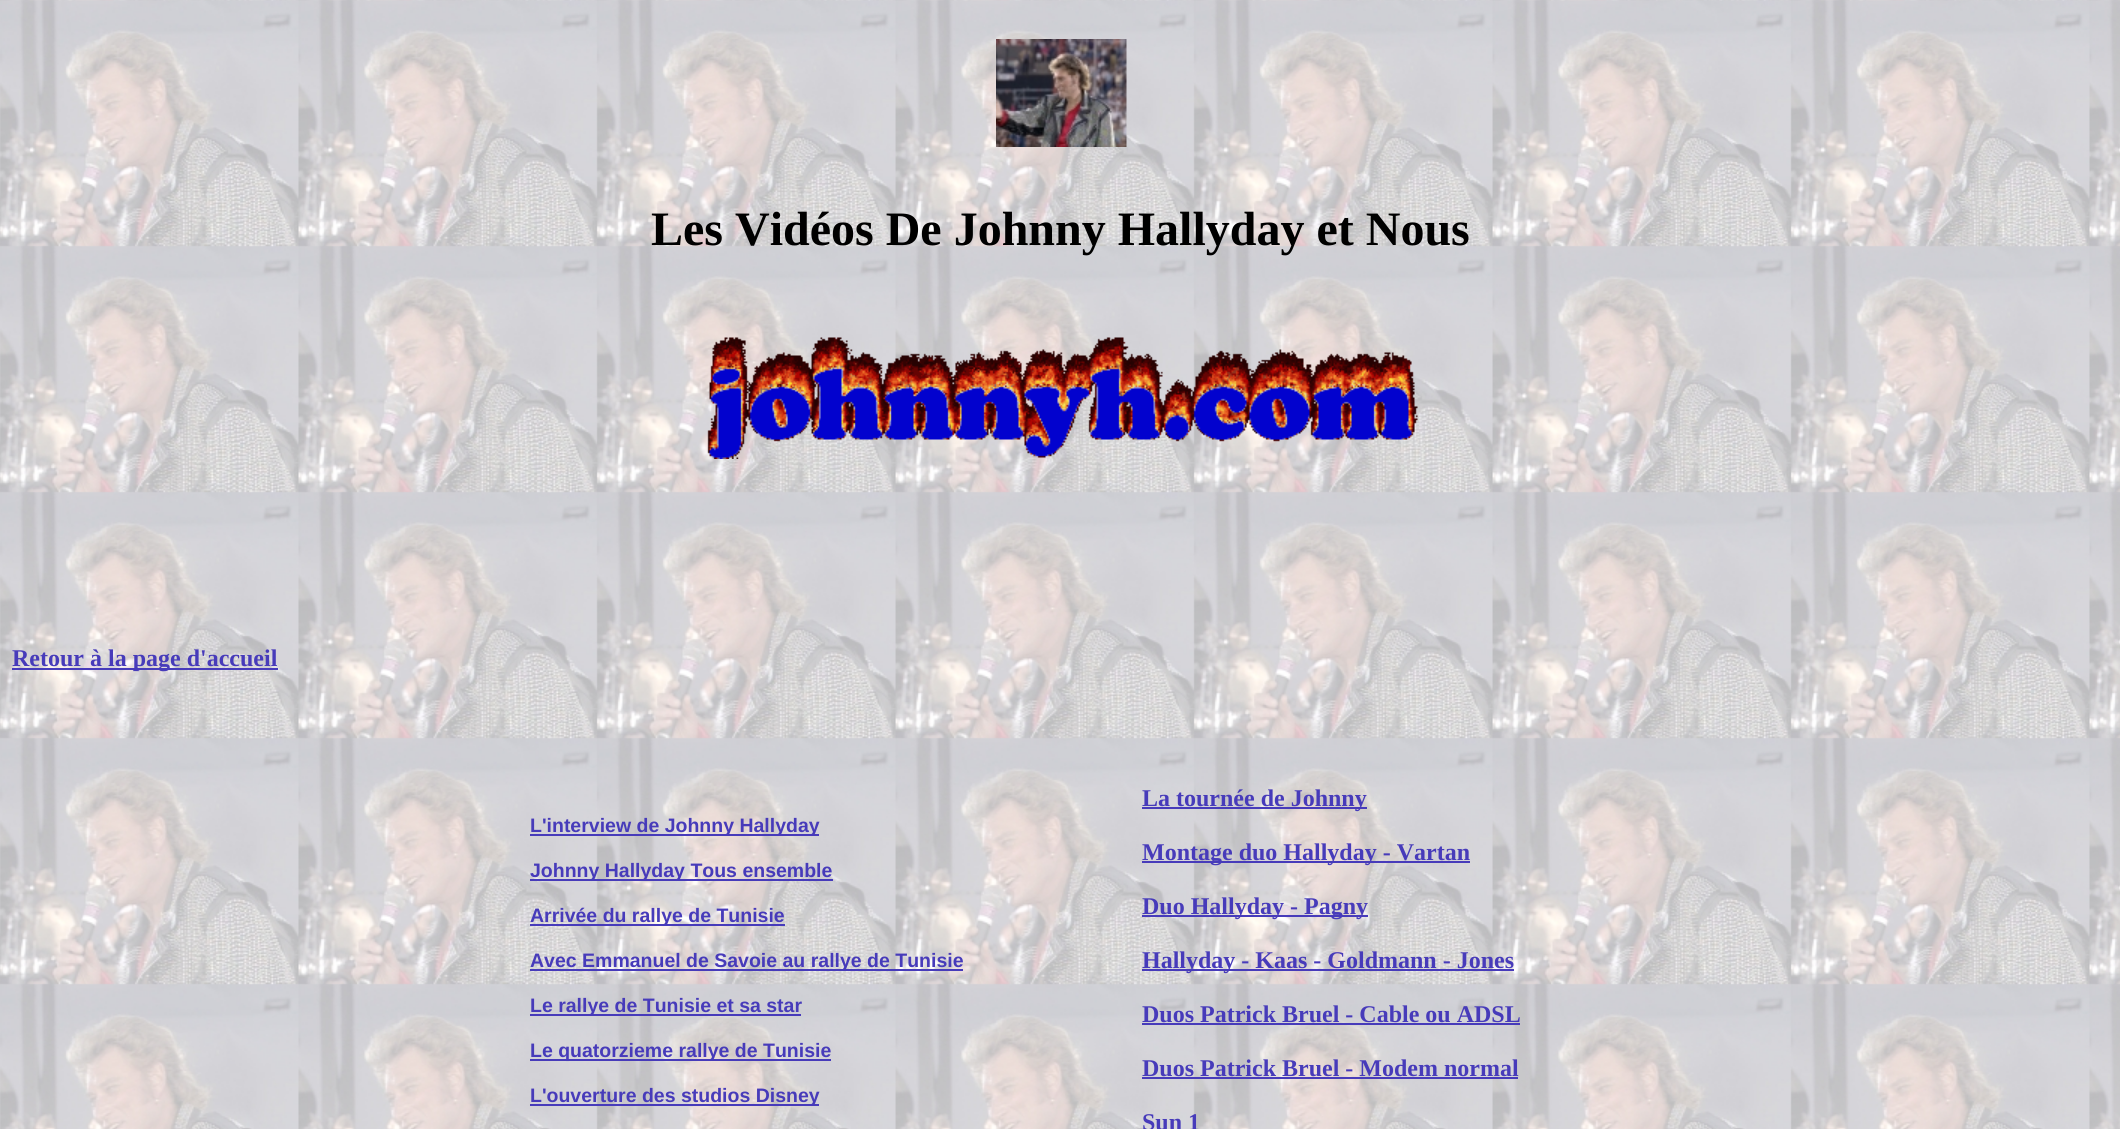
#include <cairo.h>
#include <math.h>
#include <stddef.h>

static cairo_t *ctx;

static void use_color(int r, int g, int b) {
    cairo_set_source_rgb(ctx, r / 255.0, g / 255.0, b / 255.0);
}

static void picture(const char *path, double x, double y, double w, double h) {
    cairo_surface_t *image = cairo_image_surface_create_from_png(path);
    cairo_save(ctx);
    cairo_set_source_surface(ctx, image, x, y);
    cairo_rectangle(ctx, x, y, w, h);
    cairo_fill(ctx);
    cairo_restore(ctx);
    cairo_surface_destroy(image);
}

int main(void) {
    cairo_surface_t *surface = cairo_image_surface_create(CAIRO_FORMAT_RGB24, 2120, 1129);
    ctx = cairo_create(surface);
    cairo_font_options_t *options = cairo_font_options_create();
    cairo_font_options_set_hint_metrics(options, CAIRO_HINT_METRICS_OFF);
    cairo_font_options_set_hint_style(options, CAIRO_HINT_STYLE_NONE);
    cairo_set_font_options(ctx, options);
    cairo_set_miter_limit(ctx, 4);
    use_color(255, 255, 255);
    cairo_paint(ctx);
    picture("img1.png", 0, 0, 2120, 1129);
    picture("img2.png", 996, 39, 131, 108);
    cairo_select_font_face(ctx, "Liberation Serif", CAIRO_FONT_SLANT_NORMAL, CAIRO_FONT_WEIGHT_BOLD);
    cairo_set_font_size(ctx, 48);
    use_color(0, 0, 0);
    cairo_move_to(ctx, 651, 245);
    cairo_show_text(ctx, "Les Vidéos De Johnny Hallyday et Nous");
    picture("img3.png", 707, 337, 711, 122);
    use_color(71, 59, 186);
    cairo_rectangle(ctx, 12, 668, 266, 2);
    cairo_fill(ctx);
    cairo_set_font_size(ctx, 24);
    cairo_move_to(ctx, 12, 666);
    cairo_show_text(ctx, "Retour à la page d'accueil");
    cairo_rectangle(ctx, 530, 834, 289, 2);
    cairo_fill(ctx);
    cairo_select_font_face(ctx, "Liberation Sans", CAIRO_FONT_SLANT_NORMAL, CAIRO_FONT_WEIGHT_BOLD);
    cairo_set_font_size(ctx, 19.5);
    cairo_move_to(ctx, 530, 832);
    cairo_show_text(ctx, "L'interview de Johnny Hallyday");
    cairo_rectangle(ctx, 530, 879, 303, 2);
    cairo_fill(ctx);
    cairo_move_to(ctx, 530, 877);
    cairo_show_text(ctx, "Johnny Hallyday Tous ensemble");
    cairo_rectangle(ctx, 530, 924, 255, 2);
    cairo_fill(ctx);
    cairo_move_to(ctx, 530, 922);
    cairo_show_text(ctx, "Arrivée du rallye de Tunisie");
    cairo_rectangle(ctx, 530, 969, 433, 2);
    cairo_fill(ctx);
    cairo_move_to(ctx, 530, 967);
    cairo_show_text(ctx, "Avec Emmanuel de Savoie au rallye de Tunisie");
    cairo_rectangle(ctx, 530, 1014, 271, 2);
    cairo_fill(ctx);
    cairo_move_to(ctx, 530, 1012);
    cairo_show_text(ctx, "Le rallye de Tunisie et sa star");
    cairo_rectangle(ctx, 530, 1059, 301, 2);
    cairo_fill(ctx);
    cairo_move_to(ctx, 530, 1057);
    cairo_show_text(ctx, "Le quatorzieme rallye de Tunisie");
    cairo_rectangle(ctx, 530, 1104, 289, 2);
    cairo_fill(ctx);
    cairo_move_to(ctx, 530, 1102);
    cairo_show_text(ctx, "L'ouverture des studios Disney");
    cairo_rectangle(ctx, 1142, 807, 225, 2);
    cairo_fill(ctx);
    cairo_select_font_face(ctx, "Liberation Serif", CAIRO_FONT_SLANT_NORMAL, CAIRO_FONT_WEIGHT_BOLD);
    cairo_set_font_size(ctx, 24);
    cairo_move_to(ctx, 1142, 806);
    cairo_show_text(ctx, "La tournée de Johnny");
    cairo_rectangle(ctx, 1142, 861, 328, 2);
    cairo_fill(ctx);
    cairo_move_to(ctx, 1142, 860);
    cairo_show_text(ctx, "Montage duo Hallyday - Vartan");
    cairo_rectangle(ctx, 1142, 915, 226, 2);
    cairo_fill(ctx);
    cairo_move_to(ctx, 1142, 914);
    cairo_show_text(ctx, "Duo Hallyday - Pagny");
    cairo_rectangle(ctx, 1142, 969, 372, 2);
    cairo_fill(ctx);
    cairo_move_to(ctx, 1142, 968);
    cairo_show_text(ctx, "Hallyday - Kaas - Goldmann - Jones");
    cairo_move_to(ctx, 1142, 1022);
    cairo_show_text(ctx, "Duos Patrick Bruel - Cable ou ADSL");
    cairo_rectangle(ctx, 1142, 1023, 378, 2);
    cairo_fill(ctx);
    cairo_move_to(ctx, 1142, 1076);
    cairo_show_text(ctx, "Duos Patrick Bruel - Modem normal");
    cairo_rectangle(ctx, 1142, 1077, 376, 2);
    cairo_fill(ctx);
    cairo_move_to(ctx, 1142, 1130);
    cairo_show_text(ctx, "Sun 1");
    cairo_surface_write_to_png(surface, "result.png");
    cairo_font_options_destroy(options);
    cairo_destroy(ctx);
    cairo_surface_destroy(surface);
    return 0;
}
